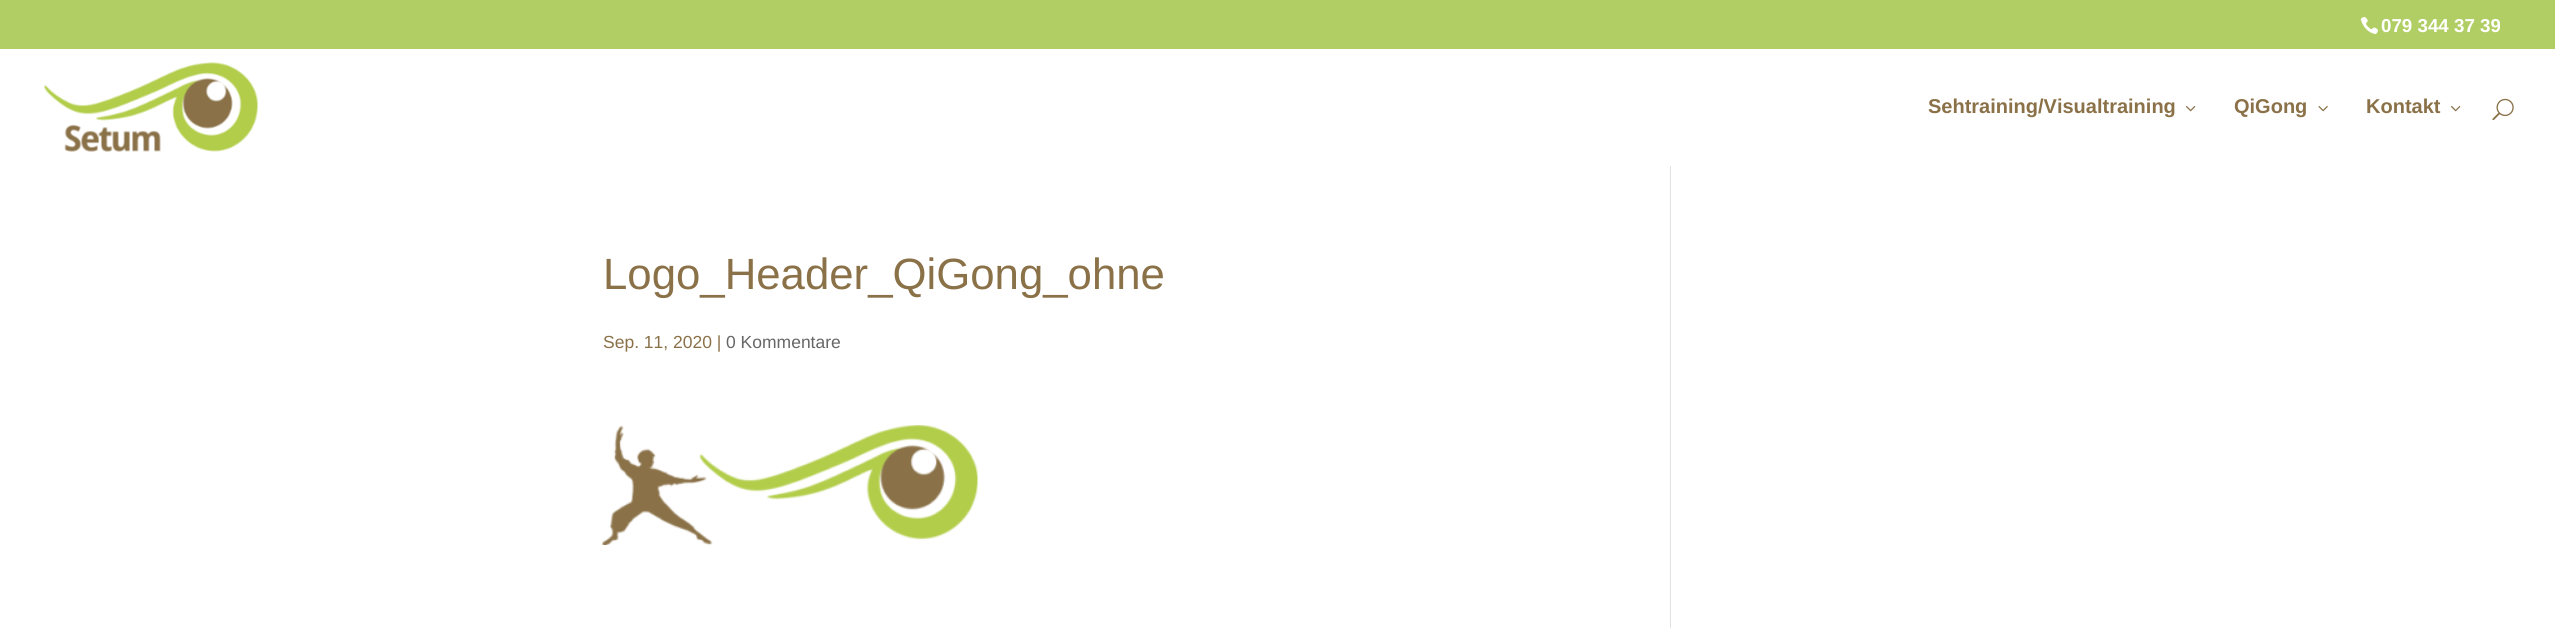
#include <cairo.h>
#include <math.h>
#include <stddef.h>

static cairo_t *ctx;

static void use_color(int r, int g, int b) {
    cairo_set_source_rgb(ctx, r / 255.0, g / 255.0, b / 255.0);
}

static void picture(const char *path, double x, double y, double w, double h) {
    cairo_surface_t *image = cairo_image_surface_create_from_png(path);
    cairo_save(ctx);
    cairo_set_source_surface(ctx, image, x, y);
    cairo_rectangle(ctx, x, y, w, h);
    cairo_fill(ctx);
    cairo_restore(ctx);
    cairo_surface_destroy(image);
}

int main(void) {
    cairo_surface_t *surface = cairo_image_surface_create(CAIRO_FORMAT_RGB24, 2555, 628);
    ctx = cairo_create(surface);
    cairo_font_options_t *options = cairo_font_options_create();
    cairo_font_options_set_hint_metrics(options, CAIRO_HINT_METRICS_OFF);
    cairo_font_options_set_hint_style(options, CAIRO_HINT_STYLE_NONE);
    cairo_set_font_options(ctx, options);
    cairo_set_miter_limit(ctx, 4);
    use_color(255, 255, 255);
    cairo_paint(ctx);
    use_color(176, 206, 99);
    cairo_rectangle(ctx, 0, 0, 2555, 49);
    cairo_fill(ctx);
    picture("img1.png", 2360, 17, 18, 18);
    cairo_select_font_face(ctx, "Liberation Sans", CAIRO_FONT_SLANT_NORMAL, CAIRO_FONT_WEIGHT_BOLD);
    cairo_set_font_size(ctx, 18.75);
    use_color(255, 255, 255);
    cairo_move_to(ctx, 2381, 32);
    cairo_show_text(ctx, "079 344 37 39");
    picture("img2.png", 44, 62, 214, 90);
    cairo_set_font_size(ctx, 20);
    use_color(138, 113, 72);
    cairo_move_to(ctx, 1928, 113);
    cairo_show_text(ctx, "Sehtraining/Visualtraining");
    picture("img3.png", 2186, 106, 10, 6);
    cairo_move_to(ctx, 2234, 113);
    cairo_show_text(ctx, "QiGong");
    picture("img4.png", 2318, 106, 10, 6);
    cairo_move_to(ctx, 2366, 113);
    cairo_show_text(ctx, "Kontakt");
    picture("img3.png", 2451, 106, 10, 6);
    picture("img5.png", 2492, 98, 22, 23);
    cairo_select_font_face(ctx, "Liberation Sans", CAIRO_FONT_SLANT_NORMAL, CAIRO_FONT_WEIGHT_NORMAL);
    cairo_set_font_size(ctx, 43.75);
    cairo_move_to(ctx, 603, 289);
    cairo_show_text(ctx, "Logo_Header_QiGong_ohne");
    cairo_set_font_size(ctx, 17.5);
    cairo_move_to(ctx, 603, 348);
    cairo_show_text(ctx, "Sep. 11, 2020 |");
    use_color(102, 102, 102);
    cairo_move_to(ctx, 726, 348);
    cairo_show_text(ctx, "0 Kommentare");
    picture("img6.png", 602, 425, 376, 120);
    use_color(226, 226, 226);
    cairo_rectangle(ctx, 1670, 166, 1, 462);
    cairo_fill(ctx);
    cairo_surface_write_to_png(surface, "result.png");
    cairo_font_options_destroy(options);
    cairo_destroy(ctx);
    cairo_surface_destroy(surface);
    return 0;
}
